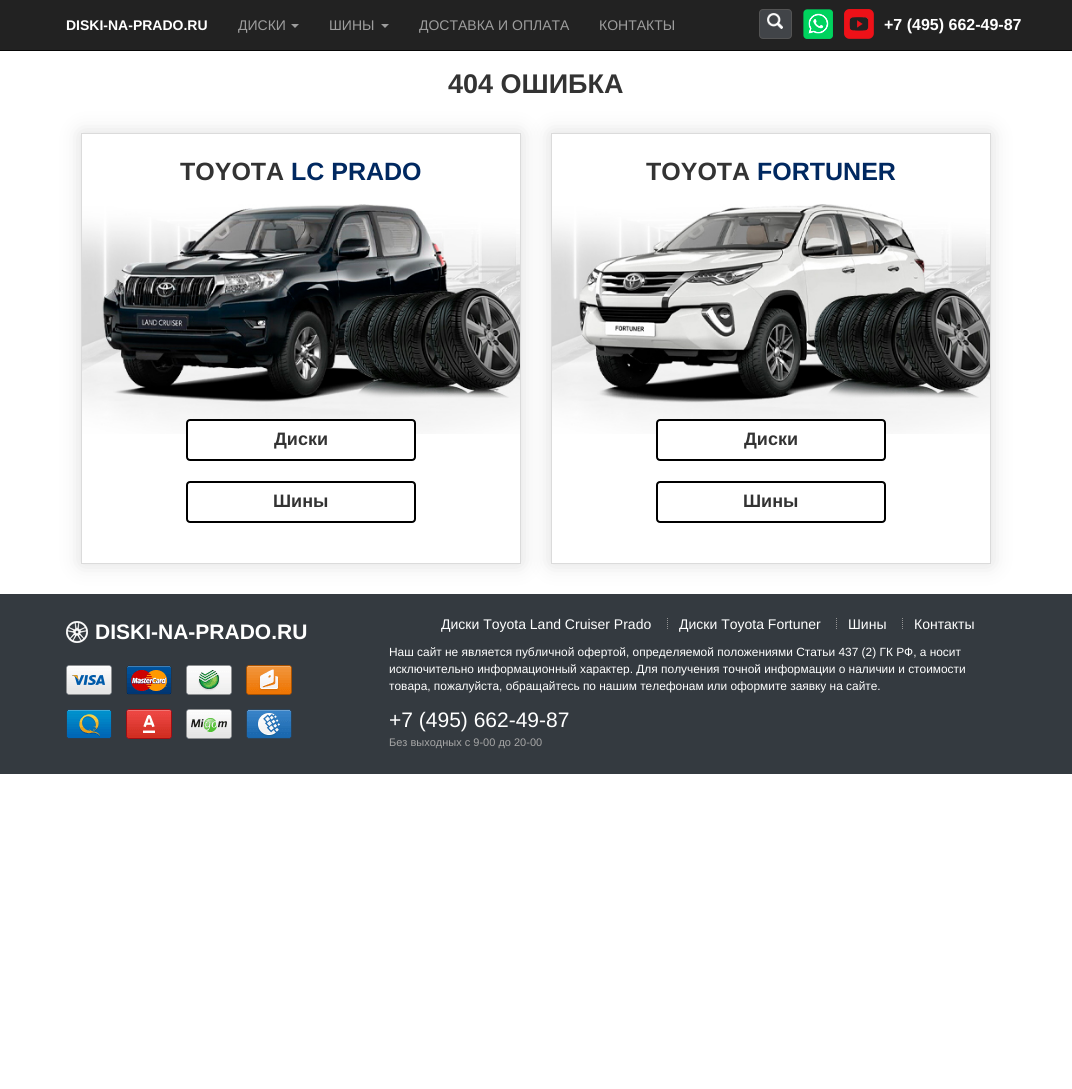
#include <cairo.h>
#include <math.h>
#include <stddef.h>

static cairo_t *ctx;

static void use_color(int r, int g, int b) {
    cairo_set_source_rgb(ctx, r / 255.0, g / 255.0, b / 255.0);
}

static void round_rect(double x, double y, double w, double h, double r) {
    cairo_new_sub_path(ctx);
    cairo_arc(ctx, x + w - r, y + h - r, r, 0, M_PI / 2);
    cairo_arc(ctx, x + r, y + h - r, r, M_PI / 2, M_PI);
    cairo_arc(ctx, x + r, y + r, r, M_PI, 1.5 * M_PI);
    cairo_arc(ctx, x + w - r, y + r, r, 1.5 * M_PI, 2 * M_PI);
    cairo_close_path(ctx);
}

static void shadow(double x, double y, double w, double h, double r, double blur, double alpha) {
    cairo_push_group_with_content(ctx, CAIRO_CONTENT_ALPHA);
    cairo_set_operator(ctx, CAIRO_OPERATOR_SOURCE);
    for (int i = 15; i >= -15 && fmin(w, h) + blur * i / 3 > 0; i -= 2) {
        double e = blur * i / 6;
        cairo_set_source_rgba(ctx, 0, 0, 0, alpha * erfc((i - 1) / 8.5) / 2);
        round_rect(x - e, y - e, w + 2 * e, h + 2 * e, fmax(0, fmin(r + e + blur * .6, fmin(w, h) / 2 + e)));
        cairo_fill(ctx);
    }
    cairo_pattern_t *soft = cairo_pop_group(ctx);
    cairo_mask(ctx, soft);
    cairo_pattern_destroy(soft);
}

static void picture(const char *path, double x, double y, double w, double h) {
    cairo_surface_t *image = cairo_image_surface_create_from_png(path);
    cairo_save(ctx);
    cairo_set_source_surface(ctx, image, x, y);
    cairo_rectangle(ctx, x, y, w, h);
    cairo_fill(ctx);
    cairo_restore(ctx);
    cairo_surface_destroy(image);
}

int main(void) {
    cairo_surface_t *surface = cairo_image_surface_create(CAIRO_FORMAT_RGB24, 1072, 1089);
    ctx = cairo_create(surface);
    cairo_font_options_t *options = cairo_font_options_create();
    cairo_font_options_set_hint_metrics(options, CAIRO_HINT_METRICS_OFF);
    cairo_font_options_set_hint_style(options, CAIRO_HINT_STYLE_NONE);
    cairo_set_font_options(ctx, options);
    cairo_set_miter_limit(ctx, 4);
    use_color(255, 255, 255);
    cairo_paint(ctx);
    use_color(34, 34, 34);
    cairo_rectangle(ctx, 0, 0, 1072, 50);
    cairo_fill(ctx);
    use_color(8, 8, 8);
    cairo_rectangle(ctx, 0, 50, 1072, 1);
    cairo_fill(ctx);
    cairo_select_font_face(ctx, "Liberation Sans", CAIRO_FONT_SLANT_NORMAL, CAIRO_FONT_WEIGHT_BOLD);
    cairo_set_font_size(ctx, 14);
    use_color(255, 255, 255);
    cairo_move_to(ctx, 66, 30);
    cairo_show_text(ctx, "DISKI-NA-PRADO.RU");
    cairo_select_font_face(ctx, "Liberation Sans", CAIRO_FONT_SLANT_NORMAL, CAIRO_FONT_WEIGHT_NORMAL);
    use_color(157, 157, 157);
    cairo_move_to(ctx, 238, 30);
    cairo_show_text(ctx, "ДИСКИ");
    cairo_new_path(ctx);
    cairo_move_to(ctx, 291, 24);
    cairo_line_to(ctx, 299, 24);
    cairo_line_to(ctx, 295, 28);
    cairo_close_path(ctx);
    cairo_fill(ctx);
    cairo_move_to(ctx, 329, 30);
    cairo_show_text(ctx, "ШИНЫ");
    cairo_new_path(ctx);
    cairo_move_to(ctx, 381, 24);
    cairo_line_to(ctx, 389, 24);
    cairo_line_to(ctx, 385, 28);
    cairo_close_path(ctx);
    cairo_fill(ctx);
    cairo_move_to(ctx, 419, 30);
    cairo_show_text(ctx, "ДОСТАВКА И ОПЛАТА");
    cairo_move_to(ctx, 599, 30);
    cairo_show_text(ctx, "КОНТАКТЫ");
    use_color(65, 68, 72);
    round_rect(759.5, 9.5, 32, 29, 3.5);
    cairo_fill_preserve(ctx);
    use_color(84, 84, 84);
    cairo_set_line_width(ctx, 1);
    cairo_stroke(ctx);
    picture("img1.png", 767, 13, 16, 16);
    picture("img2.png", 803, 9, 30, 30);
    picture("img3.png", 844, 9, 30, 30);
    cairo_select_font_face(ctx, "Liberation Sans", CAIRO_FONT_SLANT_NORMAL, CAIRO_FONT_WEIGHT_BOLD);
    cairo_set_font_size(ctx, 16);
    use_color(255, 255, 255);
    cairo_move_to(ctx, 884, 30);
    cairo_show_text(ctx, "+7 (495) 662-49-87");
    cairo_set_font_size(ctx, 27);
    use_color(51, 51, 51);
    cairo_move_to(ctx, 448, 93);
    cairo_show_text(ctx, "404 ОШИБКА");
    use_color(52, 58, 64);
    cairo_rectangle(ctx, 0, 594, 1072, 180);
    cairo_fill(ctx);
    cairo_save(ctx);
    cairo_set_fill_rule(ctx, CAIRO_FILL_RULE_EVEN_ODD);
    cairo_new_path(ctx);
    cairo_move_to(ctx, 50, 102);
    cairo_line_to(ctx, 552, 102);
    cairo_line_to(ctx, 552, 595);
    cairo_line_to(ctx, 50, 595);
    cairo_close_path(ctx);
    cairo_move_to(ctx, 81, 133);
    cairo_line_to(ctx, 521, 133);
    cairo_line_to(ctx, 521, 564);
    cairo_line_to(ctx, 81, 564);
    cairo_close_path(ctx);
    cairo_clip(ctx);
    use_color(221, 221, 221);
    shadow(81, 133, 440, 431, 0, 10, 1);
    cairo_restore(ctx);
    picture("img4.png", 82, 204, 438, 230);
    cairo_rectangle(ctx, 81.5, 133.5, 439, 430);
    use_color(219, 219, 219);
    cairo_stroke(ctx);
    cairo_set_font_size(ctx, 25);
    use_color(51, 51, 51);
    cairo_move_to(ctx, 180, 180);
    cairo_show_text(ctx, "TOYOTA");
    use_color(0, 40, 96);
    cairo_move_to(ctx, 291, 180);
    cairo_show_text(ctx, "LC PRADO");
    use_color(255, 255, 255);
    round_rect(187, 420, 228, 40, 3);
    cairo_fill_preserve(ctx);
    use_color(0, 0, 0);
    cairo_set_line_width(ctx, 2);
    cairo_stroke(ctx);
    cairo_set_font_size(ctx, 18);
    use_color(51, 51, 51);
    cairo_move_to(ctx, 274, 445);
    cairo_show_text(ctx, "Диски");
    round_rect(187, 482, 228, 40, 3);
    use_color(0, 0, 0);
    cairo_stroke(ctx);
    use_color(51, 51, 51);
    cairo_move_to(ctx, 273, 507);
    cairo_show_text(ctx, "Шины");
    cairo_save(ctx);
    cairo_set_fill_rule(ctx, CAIRO_FILL_RULE_EVEN_ODD);
    cairo_new_path(ctx);
    cairo_move_to(ctx, 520, 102);
    cairo_line_to(ctx, 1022, 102);
    cairo_line_to(ctx, 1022, 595);
    cairo_line_to(ctx, 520, 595);
    cairo_close_path(ctx);
    cairo_move_to(ctx, 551, 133);
    cairo_line_to(ctx, 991, 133);
    cairo_line_to(ctx, 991, 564);
    cairo_line_to(ctx, 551, 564);
    cairo_close_path(ctx);
    cairo_clip(ctx);
    use_color(221, 221, 221);
    shadow(551, 133, 440, 431, 0, 10, 1);
    cairo_restore(ctx);
    picture("img5.png", 552, 204, 438, 230);
    cairo_rectangle(ctx, 551.5, 133.5, 439, 430);
    use_color(219, 219, 219);
    cairo_set_line_width(ctx, 1);
    cairo_stroke(ctx);
    cairo_set_font_size(ctx, 25);
    use_color(51, 51, 51);
    cairo_move_to(ctx, 646, 180);
    cairo_show_text(ctx, "TOYOTA");
    use_color(0, 40, 96);
    cairo_move_to(ctx, 757, 180);
    cairo_show_text(ctx, "FORTUNER");
    use_color(255, 255, 255);
    round_rect(657, 420, 228, 40, 3);
    cairo_fill_preserve(ctx);
    use_color(0, 0, 0);
    cairo_set_line_width(ctx, 2);
    cairo_stroke(ctx);
    cairo_set_font_size(ctx, 18);
    use_color(51, 51, 51);
    cairo_move_to(ctx, 744, 445);
    cairo_show_text(ctx, "Диски");
    round_rect(657, 482, 228, 40, 3);
    use_color(0, 0, 0);
    cairo_stroke(ctx);
    use_color(51, 51, 51);
    cairo_move_to(ctx, 743, 507);
    cairo_show_text(ctx, "Шины");
    picture("img6.png", 66, 621, 22, 22);
    cairo_set_font_size(ctx, 21);
    use_color(255, 255, 255);
    cairo_move_to(ctx, 95, 639);
    cairo_show_text(ctx, "DISKI-NA-PRADO.RU");
    picture("img7.png", 66, 665, 226, 74);
    cairo_select_font_face(ctx, "Liberation Sans", CAIRO_FONT_SLANT_NORMAL, CAIRO_FONT_WEIGHT_NORMAL);
    cairo_set_font_size(ctx, 14);
    cairo_move_to(ctx, 441, 629);
    cairo_show_text(ctx, "Диски Toyota Land Cruiser Prado");
    picture("img8.png", 667, 618, 1, 11);
    cairo_move_to(ctx, 679, 629);
    cairo_show_text(ctx, "Диски Toyota Fortuner");
    picture("img8.png", 836, 618, 1, 11);
    cairo_move_to(ctx, 848, 629);
    cairo_show_text(ctx, "Шины");
    picture("img8.png", 902, 618, 1, 11);
    cairo_move_to(ctx, 914, 629);
    cairo_show_text(ctx, "Контакты");
    cairo_set_font_size(ctx, 11.9);
    cairo_move_to(ctx, 389, 656);
    cairo_show_text(ctx, "Наш сайт не является публичной офертой, определяемой положениями Статьи 437 (2) ГК РФ, а носит");
    cairo_move_to(ctx, 389, 673);
    cairo_show_text(ctx, "исключительно информационный характер. Для получения точной информации о наличии и стоимости");
    cairo_move_to(ctx, 389, 690);
    cairo_show_text(ctx, "товара, пожалуйста, обращайтесь по нашим телефонам или оформите заявку на сайте.");
    cairo_set_font_size(ctx, 21);
    cairo_move_to(ctx, 389, 727);
    cairo_show_text(ctx, "+7 (495) 662-49-87");
    cairo_set_font_size(ctx, 11);
    use_color(165, 165, 165);
    cairo_move_to(ctx, 389, 746);
    cairo_show_text(ctx, "Без выходных с 9-00 до 20-00");
    cairo_surface_write_to_png(surface, "result.png");
    cairo_font_options_destroy(options);
    cairo_destroy(ctx);
    cairo_surface_destroy(surface);
    return 0;
}
